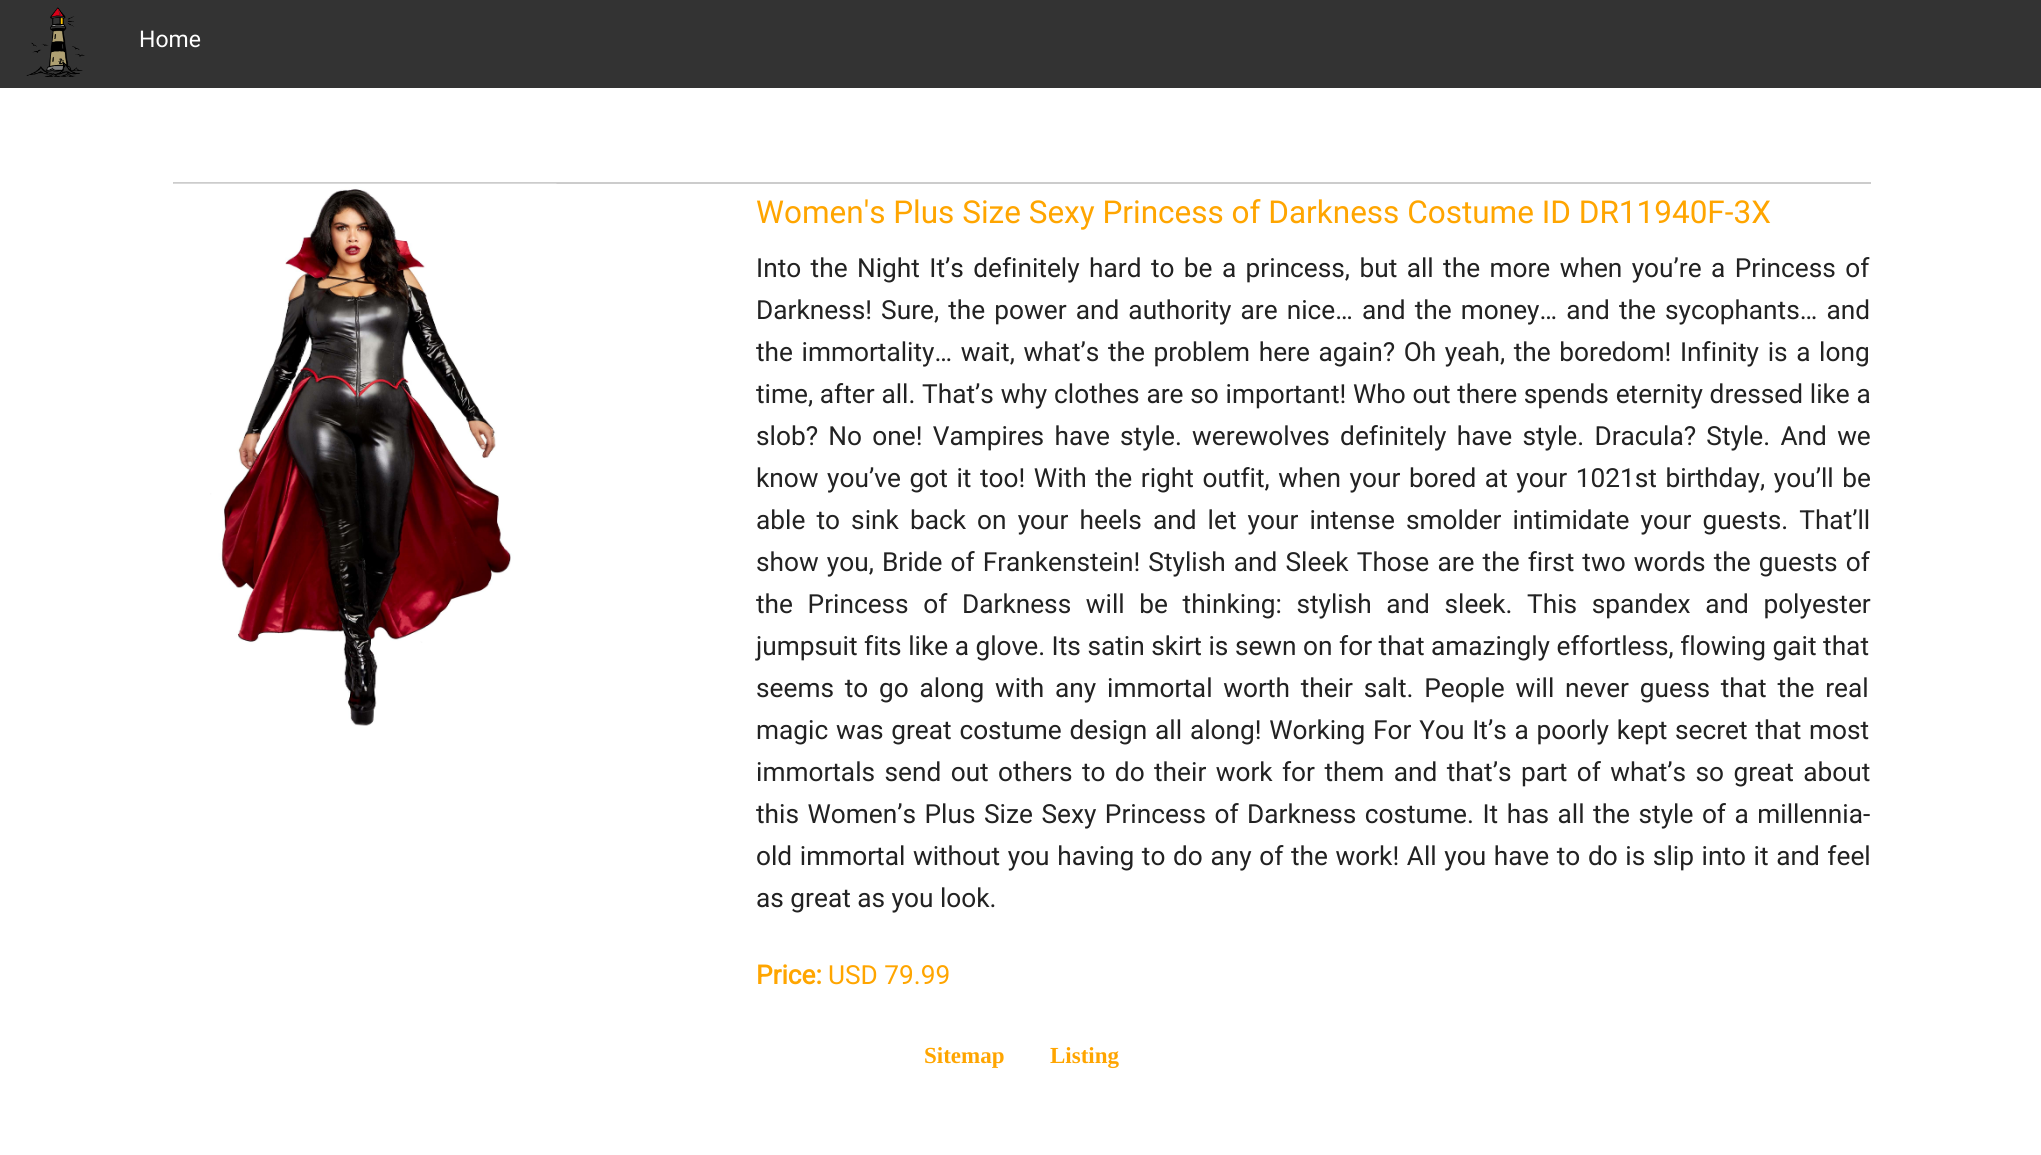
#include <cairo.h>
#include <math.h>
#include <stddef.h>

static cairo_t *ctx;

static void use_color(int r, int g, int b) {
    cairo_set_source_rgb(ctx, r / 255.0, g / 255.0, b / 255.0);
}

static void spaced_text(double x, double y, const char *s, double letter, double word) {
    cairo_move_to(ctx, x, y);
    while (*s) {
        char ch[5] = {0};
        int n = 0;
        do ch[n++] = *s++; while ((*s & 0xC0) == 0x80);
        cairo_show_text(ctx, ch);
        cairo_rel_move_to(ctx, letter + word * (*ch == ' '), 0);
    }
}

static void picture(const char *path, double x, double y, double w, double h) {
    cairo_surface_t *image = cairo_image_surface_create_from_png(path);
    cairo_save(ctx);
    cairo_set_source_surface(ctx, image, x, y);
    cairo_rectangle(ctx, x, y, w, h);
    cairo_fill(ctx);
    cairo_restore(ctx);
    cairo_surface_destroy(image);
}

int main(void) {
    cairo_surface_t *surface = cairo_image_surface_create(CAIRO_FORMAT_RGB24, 2041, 1155);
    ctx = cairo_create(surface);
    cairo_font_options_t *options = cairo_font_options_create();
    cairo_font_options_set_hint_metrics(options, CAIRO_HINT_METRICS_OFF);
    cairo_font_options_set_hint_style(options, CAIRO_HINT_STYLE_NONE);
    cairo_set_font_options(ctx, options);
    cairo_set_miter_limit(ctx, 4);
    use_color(255, 255, 255);
    cairo_paint(ctx);
    use_color(51, 51, 51);
    cairo_rectangle(ctx, 0, 0, 2041, 88);
    cairo_fill(ctx);
    picture("img1.png", 26, 7, 59, 70);
    cairo_select_font_face(ctx, "Roboto", CAIRO_FONT_SLANT_NORMAL, CAIRO_FONT_WEIGHT_NORMAL);
    cairo_set_font_size(ctx, 23);
    use_color(255, 255, 255);
    cairo_move_to(ctx, 139, 47);
    cairo_show_text(ctx, "Home");
    use_color(204, 204, 204);
    cairo_rectangle(ctx, 173, 182, 1698, 2);
    cairo_fill(ctx);
    picture("img2.png", 173, 183, 384, 543);
    cairo_set_font_size(ctx, 31.5);
    use_color(255, 165, 0);
    cairo_move_to(ctx, 756, 223);
    cairo_show_text(ctx, "Women's Plus Size Sexy Princess of Darkness Costume ID DR11940F-3X");
    cairo_set_font_size(ctx, 26.25);
    use_color(34, 34, 34);
    spaced_text(756, 277, "Into the Night It’s definitely hard to be a princess, but all the more when you’re a Princess of", 0, 2.9);
    spaced_text(756, 319, "Darkness! Sure, the power and authority are nice… and the money… and the sycophants… and", 0, 2.6);
    spaced_text(756, 361, "the immortality… wait, what’s the problem here again? Oh yeah, the boredom! Infinity is a long", 0, 2.1);
    spaced_text(756, 403, "time, after all. That’s why clothes are so important! Who out there spends eternity dressed like a", 0, 0.25);
    spaced_text(756, 445, "slob? No one! Vampires have style. werewolves definitely have style. Dracula? Style. And we", 0, 3.75);
    spaced_text(756, 487, "know you’ve got it too! With the right outfit, when your bored at your 1021st birthday, you’ll be", 0, 2.1);
    spaced_text(756, 529, "able to sink back on your heels and let your intense smolder intimidate your guests. That’ll", 0, 4.6);
    spaced_text(756, 571, "show you, Bride of Frankenstein! Stylish and Sleek Those are the first two words the guests of", 0, 1.6);
    spaced_text(756, 613, "the Princess of Darkness will be thinking: stylish and sleek. This spandex and polyester", 0, 8.1);
    cairo_move_to(ctx, 756, 655);
    cairo_show_text(ctx, "jumpsuit fits like a glove. Its satin skirt is sewn on for that amazingly effortless, flowing gait that");
    spaced_text(756, 697, "seems to go along with any immortal worth their salt. People will never guess that the real", 0, 4.25);
    spaced_text(756, 739, "magic was great costume design all along! Working For You It’s a poorly kept secret that most", 0, 1.25);
    spaced_text(756, 781, "immortals send out others to do their work for them and that’s part of what’s so great about", 0, 2.9);
    spaced_text(756, 823, "this Women’s Plus Size Sexy Princess of Darkness costume. It has all the style of a millennia-", 0, 2);
    spaced_text(756, 865, "old immortal without you having to do any of the work! All you have to do is slip into it and feel", 0, 1.1);
    cairo_move_to(ctx, 756, 907);
    cairo_show_text(ctx, "as great as you look.");
    cairo_select_font_face(ctx, "Roboto", CAIRO_FONT_SLANT_NORMAL, CAIRO_FONT_WEIGHT_BOLD);
    use_color(255, 165, 0);
    cairo_move_to(ctx, 756, 984);
    cairo_show_text(ctx, "Price:");
    cairo_select_font_face(ctx, "Roboto", CAIRO_FONT_SLANT_NORMAL, CAIRO_FONT_WEIGHT_NORMAL);
    cairo_move_to(ctx, 828, 984);
    cairo_show_text(ctx, "USD 79.99");
    cairo_select_font_face(ctx, "Liberation Serif", CAIRO_FONT_SLANT_NORMAL, CAIRO_FONT_WEIGHT_BOLD);
    cairo_set_font_size(ctx, 23);
    cairo_move_to(ctx, 924, 1063);
    cairo_show_text(ctx, "Sitemap");
    cairo_move_to(ctx, 1050, 1063);
    cairo_show_text(ctx, "Listing");
    cairo_surface_write_to_png(surface, "result.png");
    cairo_font_options_destroy(options);
    cairo_destroy(ctx);
    cairo_surface_destroy(surface);
    return 0;
}
